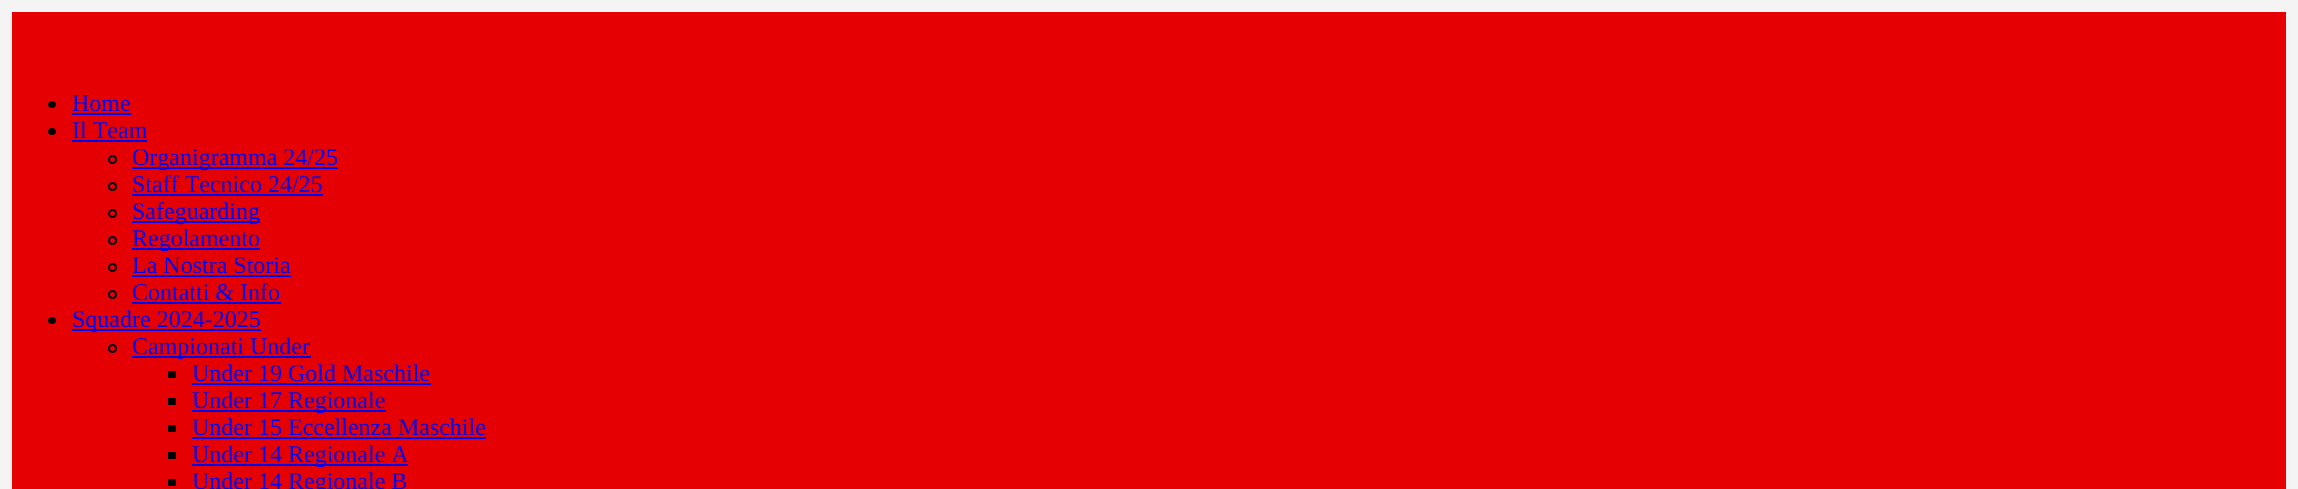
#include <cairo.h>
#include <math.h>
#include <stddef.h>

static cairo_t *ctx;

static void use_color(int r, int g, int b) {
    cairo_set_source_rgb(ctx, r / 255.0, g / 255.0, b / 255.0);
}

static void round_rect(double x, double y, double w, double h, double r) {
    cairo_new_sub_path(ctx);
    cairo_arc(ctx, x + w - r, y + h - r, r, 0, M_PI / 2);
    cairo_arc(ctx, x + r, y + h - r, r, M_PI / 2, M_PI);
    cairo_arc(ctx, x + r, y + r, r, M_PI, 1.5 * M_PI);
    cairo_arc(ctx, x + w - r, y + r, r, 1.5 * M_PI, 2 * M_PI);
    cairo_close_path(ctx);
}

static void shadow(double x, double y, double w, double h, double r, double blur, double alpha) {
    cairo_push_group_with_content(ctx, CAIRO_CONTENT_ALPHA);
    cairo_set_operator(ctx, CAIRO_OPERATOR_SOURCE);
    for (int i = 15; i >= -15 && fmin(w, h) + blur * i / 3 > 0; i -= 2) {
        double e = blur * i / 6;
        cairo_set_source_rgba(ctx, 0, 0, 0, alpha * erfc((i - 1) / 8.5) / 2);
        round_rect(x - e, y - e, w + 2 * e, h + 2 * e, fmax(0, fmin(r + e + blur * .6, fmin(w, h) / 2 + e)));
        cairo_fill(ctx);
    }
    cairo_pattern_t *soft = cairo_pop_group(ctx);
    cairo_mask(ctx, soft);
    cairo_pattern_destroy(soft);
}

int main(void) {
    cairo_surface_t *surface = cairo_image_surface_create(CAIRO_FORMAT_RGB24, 2298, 489);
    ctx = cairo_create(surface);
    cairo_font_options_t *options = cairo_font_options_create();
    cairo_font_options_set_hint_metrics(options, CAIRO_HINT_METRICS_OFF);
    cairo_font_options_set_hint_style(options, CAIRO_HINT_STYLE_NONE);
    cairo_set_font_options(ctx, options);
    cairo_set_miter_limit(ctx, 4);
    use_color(244, 244, 244);
    cairo_paint(ctx);
    use_color(0, 0, 0);
    shadow(12, 17, 2274, 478, 0, 2, 0.08);
    use_color(229, 0, 3);
    cairo_rectangle(ctx, 12, 12, 2274, 477);
    cairo_fill(ctx);
    use_color(0, 0, 0);
    round_rect(48, 101, 8, 7, 3.5);
    cairo_fill(ctx);
    cairo_select_font_face(ctx, "Liberation Serif", CAIRO_FONT_SLANT_NORMAL, CAIRO_FONT_WEIGHT_NORMAL);
    cairo_set_font_size(ctx, 24);
    use_color(0, 0, 238);
    cairo_move_to(ctx, 72, 111);
    cairo_show_text(ctx, "Home");
    cairo_rectangle(ctx, 72, 113, 59, 2);
    cairo_fill(ctx);
    use_color(0, 0, 0);
    round_rect(48, 128, 8, 7, 3.5);
    cairo_fill(ctx);
    use_color(0, 0, 238);
    cairo_move_to(ctx, 72, 138);
    cairo_show_text(ctx, "Il Team");
    cairo_rectangle(ctx, 72, 140, 75, 2);
    cairo_fill(ctx);
    cairo_arc(ctx, 112.5, 159.5, 3.5, 0, 2 * M_PI);
    use_color(0, 0, 0);
    cairo_stroke(ctx);
    use_color(0, 0, 238);
    cairo_rectangle(ctx, 132, 167, 206, 2);
    cairo_fill(ctx);
    cairo_move_to(ctx, 132, 165);
    cairo_show_text(ctx, "Organigramma 24/25");
    cairo_new_path(ctx);
    cairo_arc(ctx, 112.5, 186.5, 3.5, 0, 2 * M_PI);
    use_color(0, 0, 0);
    cairo_stroke(ctx);
    use_color(0, 0, 238);
    cairo_move_to(ctx, 132, 192);
    cairo_show_text(ctx, "Staff Tecnico 24/25");
    cairo_rectangle(ctx, 132, 194, 191, 2);
    cairo_fill(ctx);
    cairo_arc(ctx, 112.5, 213.5, 3.5, 0, 2 * M_PI);
    use_color(0, 0, 0);
    cairo_stroke(ctx);
    use_color(0, 0, 238);
    cairo_rectangle(ctx, 132, 221, 128, 2);
    cairo_fill(ctx);
    cairo_move_to(ctx, 132, 219);
    cairo_show_text(ctx, "Safeguarding");
    cairo_new_path(ctx);
    cairo_arc(ctx, 112.5, 240.5, 3.5, 0, 2 * M_PI);
    use_color(0, 0, 0);
    cairo_stroke(ctx);
    use_color(0, 0, 238);
    cairo_rectangle(ctx, 132, 248, 128, 2);
    cairo_fill(ctx);
    cairo_move_to(ctx, 132, 246);
    cairo_show_text(ctx, "Regolamento");
    cairo_new_path(ctx);
    cairo_arc(ctx, 112.5, 267.5, 3.5, 0, 2 * M_PI);
    use_color(0, 0, 0);
    cairo_stroke(ctx);
    use_color(0, 0, 238);
    cairo_move_to(ctx, 132, 273);
    cairo_show_text(ctx, "La Nostra Storia");
    cairo_rectangle(ctx, 132, 275, 159, 2);
    cairo_fill(ctx);
    cairo_arc(ctx, 112.5, 294.5, 3.5, 0, 2 * M_PI);
    use_color(0, 0, 0);
    cairo_stroke(ctx);
    use_color(0, 0, 238);
    cairo_move_to(ctx, 132, 300);
    cairo_show_text(ctx, "Contatti & Info");
    cairo_rectangle(ctx, 132, 302, 149, 2);
    cairo_fill(ctx);
    use_color(0, 0, 0);
    round_rect(48, 317, 8, 7, 3.5);
    cairo_fill(ctx);
    use_color(0, 0, 238);
    cairo_rectangle(ctx, 72, 329, 189, 2);
    cairo_fill(ctx);
    cairo_move_to(ctx, 72, 327);
    cairo_show_text(ctx, "Squadre 2024-2025");
    cairo_new_path(ctx);
    cairo_arc(ctx, 112.5, 348.5, 3.5, 0, 2 * M_PI);
    use_color(0, 0, 0);
    cairo_stroke(ctx);
    use_color(0, 0, 238);
    cairo_rectangle(ctx, 132, 356, 179, 2);
    cairo_fill(ctx);
    cairo_move_to(ctx, 132, 354);
    cairo_show_text(ctx, "Campionati Under");
    use_color(0, 0, 0);
    cairo_rectangle(ctx, 168, 371, 8, 7);
    cairo_fill(ctx);
    use_color(0, 0, 238);
    cairo_move_to(ctx, 192, 381);
    cairo_show_text(ctx, "Under 19 Gold Maschile");
    cairo_rectangle(ctx, 192, 383, 239, 2);
    cairo_fill(ctx);
    use_color(0, 0, 0);
    cairo_rectangle(ctx, 168, 398, 8, 7);
    cairo_fill(ctx);
    use_color(0, 0, 238);
    cairo_rectangle(ctx, 192, 410, 194, 2);
    cairo_fill(ctx);
    cairo_move_to(ctx, 192, 408);
    cairo_show_text(ctx, "Under 17 Regionale");
    use_color(0, 0, 0);
    cairo_rectangle(ctx, 168, 425, 8, 7);
    cairo_fill(ctx);
    use_color(0, 0, 238);
    cairo_move_to(ctx, 192, 435);
    cairo_show_text(ctx, "Under 15 Eccellenza Maschile");
    cairo_rectangle(ctx, 192, 437, 294, 2);
    cairo_fill(ctx);
    use_color(0, 0, 0);
    cairo_rectangle(ctx, 168, 452, 8, 7);
    cairo_fill(ctx);
    use_color(0, 0, 238);
    cairo_rectangle(ctx, 192, 464, 216, 2);
    cairo_fill(ctx);
    cairo_move_to(ctx, 192, 462);
    cairo_show_text(ctx, "Under 14 Regionale A");
    use_color(0, 0, 0);
    cairo_rectangle(ctx, 168, 479, 8, 7);
    cairo_fill(ctx);
    use_color(0, 0, 238);
    cairo_move_to(ctx, 192, 489);
    cairo_show_text(ctx, "Under 14 Regionale B");
    cairo_surface_write_to_png(surface, "result.png");
    cairo_font_options_destroy(options);
    cairo_destroy(ctx);
    cairo_surface_destroy(surface);
    return 0;
}
